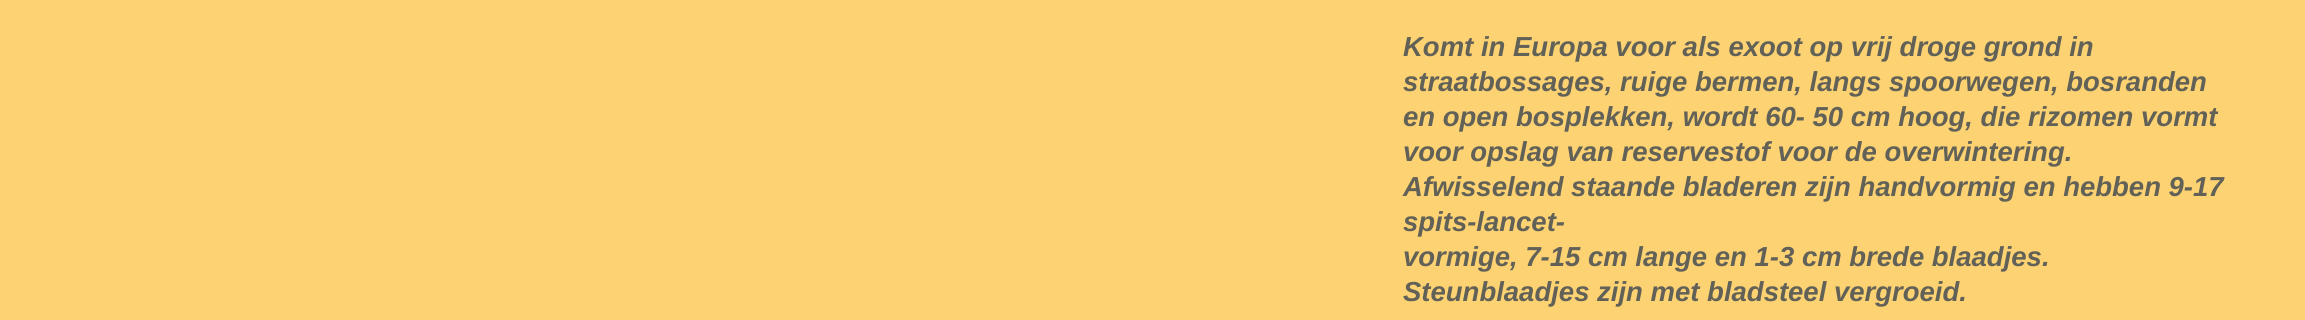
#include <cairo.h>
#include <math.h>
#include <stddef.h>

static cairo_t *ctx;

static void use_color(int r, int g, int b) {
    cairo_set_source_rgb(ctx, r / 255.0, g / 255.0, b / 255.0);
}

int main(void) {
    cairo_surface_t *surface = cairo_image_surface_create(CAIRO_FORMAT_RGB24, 2305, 320);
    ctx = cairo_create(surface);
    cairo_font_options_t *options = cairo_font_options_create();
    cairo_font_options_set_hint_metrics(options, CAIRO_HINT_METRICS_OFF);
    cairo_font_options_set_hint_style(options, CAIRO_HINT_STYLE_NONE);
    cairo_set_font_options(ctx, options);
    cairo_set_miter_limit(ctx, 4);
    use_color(252, 210, 114);
    cairo_paint(ctx);
    cairo_select_font_face(ctx, "Liberation Sans", CAIRO_FONT_SLANT_ITALIC, CAIRO_FONT_WEIGHT_BOLD);
    cairo_set_font_size(ctx, 27.5);
    use_color(97, 97, 88);
    cairo_move_to(ctx, 1403, 56);
    cairo_show_text(ctx, "Komt in Europa voor als exoot op vrij droge grond in");
    cairo_move_to(ctx, 1403, 91);
    cairo_show_text(ctx, "straatbossages, ruige bermen, langs spoorwegen, bosranden");
    cairo_move_to(ctx, 1403, 126);
    cairo_show_text(ctx, "en open bosplekken, wordt 60- 50 cm hoog, die rizomen vormt");
    cairo_move_to(ctx, 1403, 161);
    cairo_show_text(ctx, "voor opslag van reservestof voor de overwintering.");
    cairo_move_to(ctx, 1403, 196);
    cairo_show_text(ctx, "Afwisselend staande bladeren zijn handvormig en hebben 9-17");
    cairo_move_to(ctx, 1403, 231);
    cairo_show_text(ctx, "spits-lancet-");
    cairo_move_to(ctx, 1403, 266);
    cairo_show_text(ctx, "vormige, 7-15 cm lange en 1-3 cm brede blaadjes.");
    cairo_move_to(ctx, 1403, 301);
    cairo_show_text(ctx, "Steunblaadjes zijn met bladsteel vergroeid.");
    cairo_surface_write_to_png(surface, "result.png");
    cairo_font_options_destroy(options);
    cairo_destroy(ctx);
    cairo_surface_destroy(surface);
    return 0;
}
